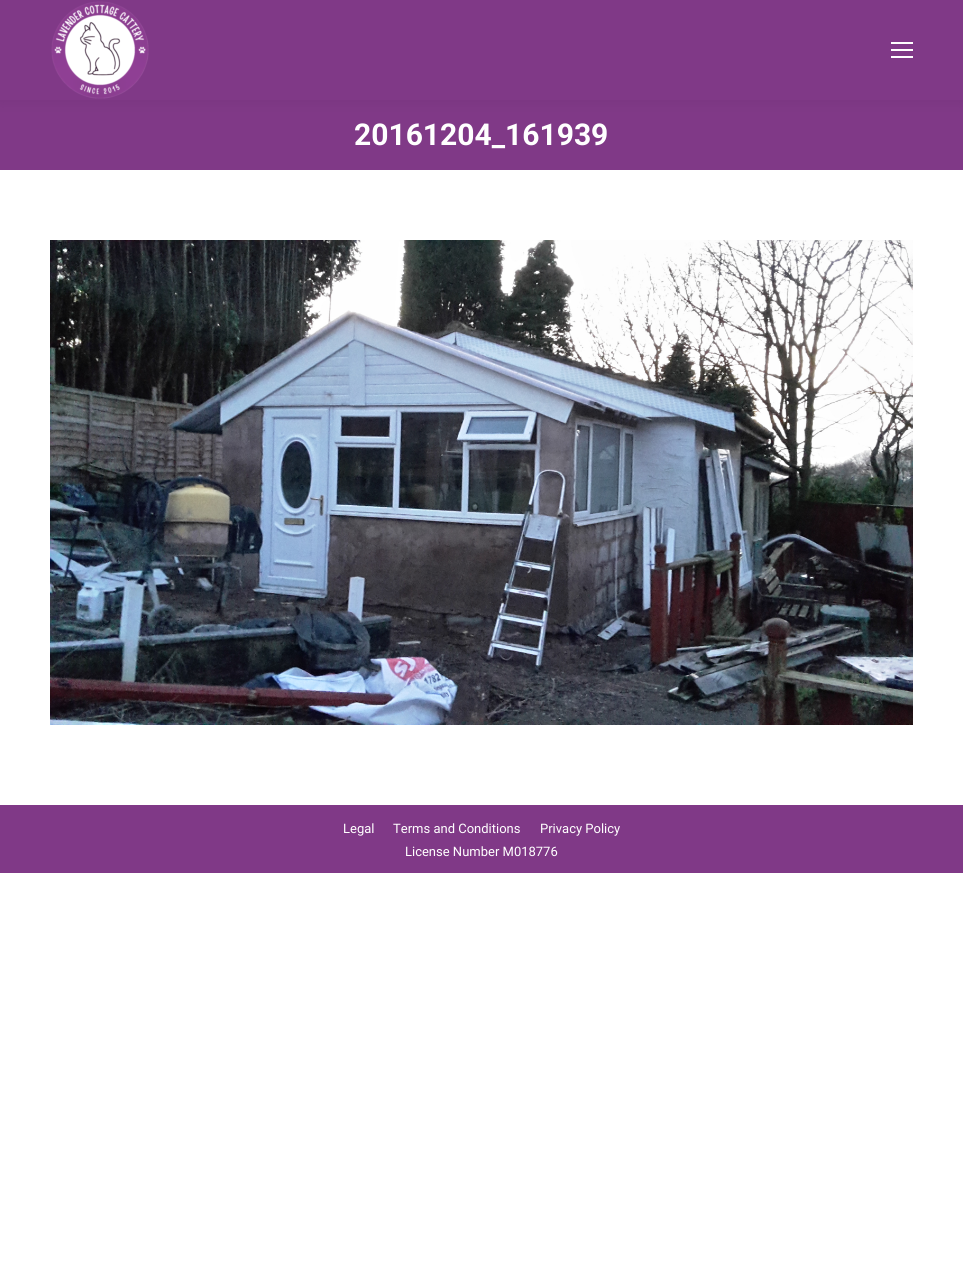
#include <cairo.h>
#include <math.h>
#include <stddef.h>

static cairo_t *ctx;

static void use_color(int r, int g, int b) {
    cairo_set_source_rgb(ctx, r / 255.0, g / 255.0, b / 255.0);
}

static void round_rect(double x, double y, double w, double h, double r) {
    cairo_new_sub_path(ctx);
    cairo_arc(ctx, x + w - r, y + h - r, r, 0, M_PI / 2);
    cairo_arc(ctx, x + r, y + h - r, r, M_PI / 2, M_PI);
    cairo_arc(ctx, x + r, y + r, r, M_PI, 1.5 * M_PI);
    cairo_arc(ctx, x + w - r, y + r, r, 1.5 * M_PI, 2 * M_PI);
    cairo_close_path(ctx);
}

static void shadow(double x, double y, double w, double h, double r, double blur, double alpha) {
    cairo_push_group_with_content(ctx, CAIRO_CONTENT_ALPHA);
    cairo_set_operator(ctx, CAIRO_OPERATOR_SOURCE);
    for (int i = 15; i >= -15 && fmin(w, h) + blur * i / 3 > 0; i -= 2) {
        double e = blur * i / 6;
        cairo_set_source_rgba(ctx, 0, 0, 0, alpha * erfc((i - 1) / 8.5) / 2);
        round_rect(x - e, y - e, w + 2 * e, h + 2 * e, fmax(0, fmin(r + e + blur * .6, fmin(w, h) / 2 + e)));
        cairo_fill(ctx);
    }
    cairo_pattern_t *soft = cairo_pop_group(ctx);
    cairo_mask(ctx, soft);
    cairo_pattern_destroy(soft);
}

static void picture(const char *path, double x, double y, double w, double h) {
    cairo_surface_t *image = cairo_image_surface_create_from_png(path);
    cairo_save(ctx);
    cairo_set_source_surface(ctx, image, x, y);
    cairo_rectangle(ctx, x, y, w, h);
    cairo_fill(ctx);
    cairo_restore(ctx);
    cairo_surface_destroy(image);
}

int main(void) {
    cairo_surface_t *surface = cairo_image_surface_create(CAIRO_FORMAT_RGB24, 963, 1278);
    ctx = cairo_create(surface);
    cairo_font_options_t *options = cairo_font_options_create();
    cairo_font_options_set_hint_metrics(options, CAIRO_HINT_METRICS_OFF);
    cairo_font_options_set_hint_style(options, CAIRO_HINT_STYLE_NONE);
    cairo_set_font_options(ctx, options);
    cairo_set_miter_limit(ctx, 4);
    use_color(255, 255, 255);
    cairo_paint(ctx);
    use_color(128, 57, 135);
    cairo_rectangle(ctx, 0, 100, 963, 70);
    cairo_fill(ctx);
    use_color(0, 0, 0);
    shadow(-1, -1, 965, 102, 0, 7.5, 0.07);
    use_color(128, 57, 135);
    cairo_rectangle(ctx, 0, 0, 963, 100);
    cairo_fill(ctx);
    picture("img1.png", 51, 1, 98, 98);
    use_color(255, 255, 255);
    cairo_rectangle(ctx, 891, 49, 22, 2);
    cairo_fill(ctx);
    cairo_rectangle(ctx, 891, 42, 22, 2);
    cairo_fill(ctx);
    cairo_rectangle(ctx, 891, 56, 22, 2);
    cairo_fill(ctx);
    cairo_select_font_face(ctx, "Roboto", CAIRO_FONT_SLANT_NORMAL, CAIRO_FONT_WEIGHT_BOLD);
    cairo_set_font_size(ctx, 30);
    cairo_move_to(ctx, 354, 145);
    cairo_show_text(ctx, "20161204_161939");
    picture("img2.png", 50, 240, 863, 485);
    use_color(128, 57, 135);
    cairo_rectangle(ctx, 0, 805, 963, 68);
    cairo_fill(ctx);
    cairo_select_font_face(ctx, "Roboto", CAIRO_FONT_SLANT_NORMAL, CAIRO_FONT_WEIGHT_NORMAL);
    cairo_set_font_size(ctx, 13);
    use_color(255, 255, 255);
    cairo_move_to(ctx, 343, 833);
    cairo_show_text(ctx, "Legal");
    cairo_move_to(ctx, 393, 833);
    cairo_show_text(ctx, "Terms and Conditions");
    cairo_move_to(ctx, 540, 833);
    cairo_show_text(ctx, "Privacy Policy");
    cairo_move_to(ctx, 405, 856);
    cairo_show_text(ctx, "License Number M018776");
    cairo_surface_write_to_png(surface, "result.png");
    cairo_font_options_destroy(options);
    cairo_destroy(ctx);
    cairo_surface_destroy(surface);
    return 0;
}
